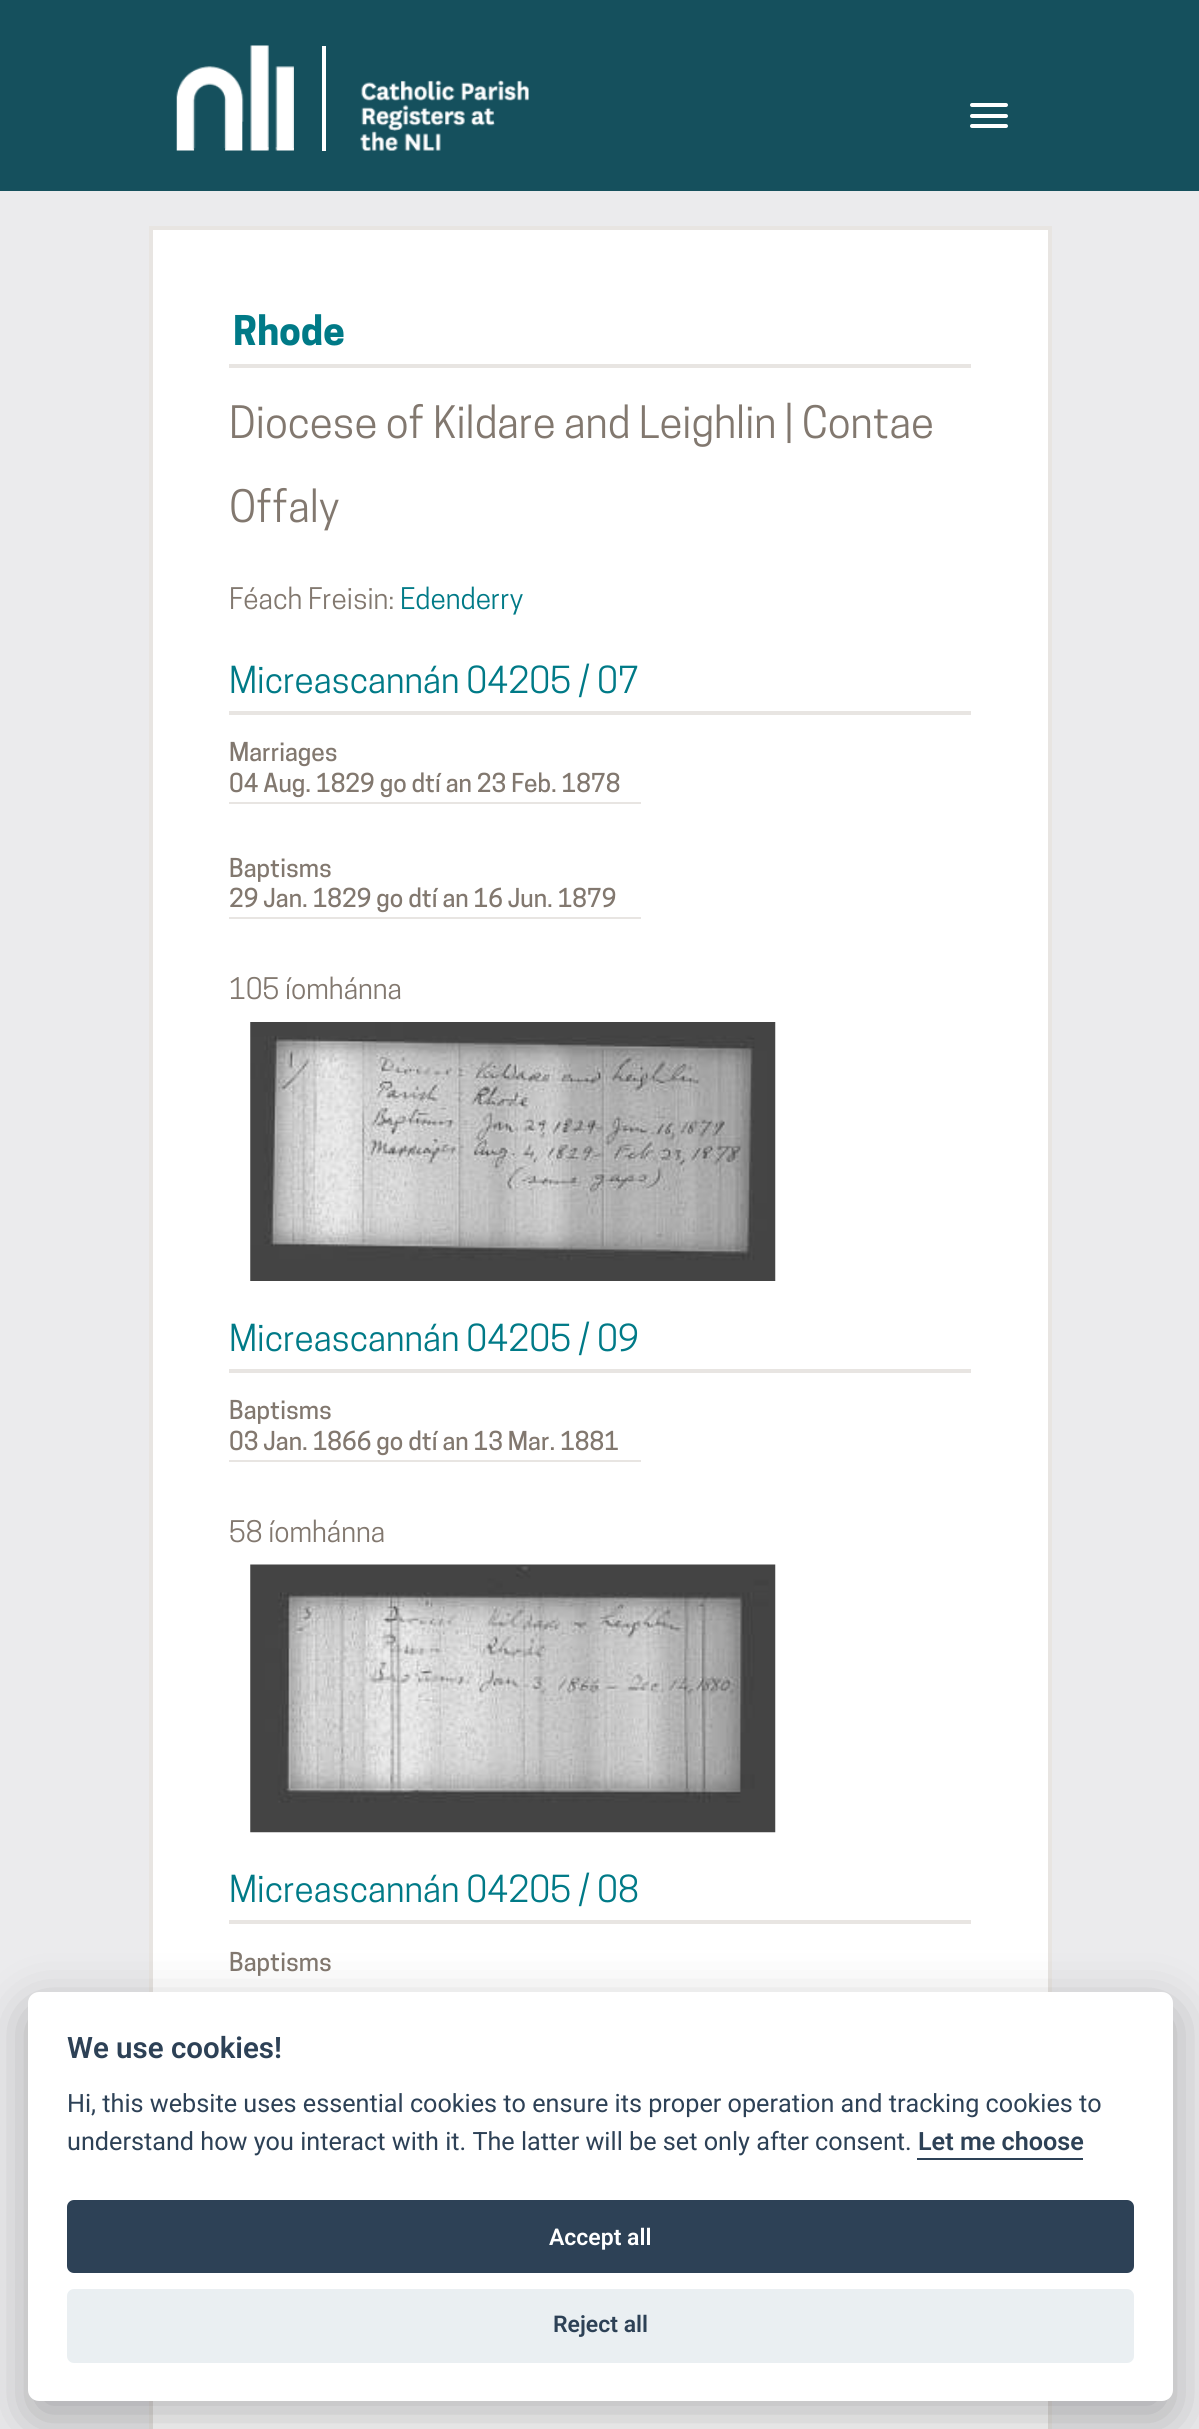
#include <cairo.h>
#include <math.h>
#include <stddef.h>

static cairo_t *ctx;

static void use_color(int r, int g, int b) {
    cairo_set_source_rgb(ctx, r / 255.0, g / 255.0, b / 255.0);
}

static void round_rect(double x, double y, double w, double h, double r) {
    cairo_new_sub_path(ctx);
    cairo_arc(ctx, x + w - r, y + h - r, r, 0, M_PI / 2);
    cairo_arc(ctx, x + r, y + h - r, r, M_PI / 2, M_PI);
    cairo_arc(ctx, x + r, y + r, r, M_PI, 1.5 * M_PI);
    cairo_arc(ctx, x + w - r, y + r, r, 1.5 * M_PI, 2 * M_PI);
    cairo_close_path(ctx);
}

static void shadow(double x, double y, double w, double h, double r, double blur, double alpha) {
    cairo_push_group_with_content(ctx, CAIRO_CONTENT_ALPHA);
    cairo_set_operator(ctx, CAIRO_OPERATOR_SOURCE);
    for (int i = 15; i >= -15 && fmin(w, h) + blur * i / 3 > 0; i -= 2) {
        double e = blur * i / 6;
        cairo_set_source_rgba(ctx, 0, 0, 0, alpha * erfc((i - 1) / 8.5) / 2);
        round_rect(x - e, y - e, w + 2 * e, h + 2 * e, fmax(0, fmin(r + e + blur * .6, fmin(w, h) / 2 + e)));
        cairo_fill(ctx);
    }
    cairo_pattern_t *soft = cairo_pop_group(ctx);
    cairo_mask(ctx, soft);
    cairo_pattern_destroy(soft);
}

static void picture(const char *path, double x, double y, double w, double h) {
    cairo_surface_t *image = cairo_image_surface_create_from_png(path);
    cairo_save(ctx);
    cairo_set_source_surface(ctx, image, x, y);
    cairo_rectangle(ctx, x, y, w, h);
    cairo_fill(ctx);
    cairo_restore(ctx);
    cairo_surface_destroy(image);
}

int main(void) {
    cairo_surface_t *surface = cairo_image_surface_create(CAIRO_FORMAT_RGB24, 1199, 2429);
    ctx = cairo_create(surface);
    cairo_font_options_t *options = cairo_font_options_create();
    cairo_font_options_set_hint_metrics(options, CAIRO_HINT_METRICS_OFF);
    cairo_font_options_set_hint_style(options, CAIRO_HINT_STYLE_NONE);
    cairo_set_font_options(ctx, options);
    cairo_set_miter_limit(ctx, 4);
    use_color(235, 235, 237);
    cairo_paint(ctx);
    use_color(21, 80, 93);
    cairo_rectangle(ctx, 0, 0, 1199, 191);
    cairo_fill(ctx);
    picture("img1.png", 176, 45, 118, 106);
    use_color(255, 255, 255);
    cairo_rectangle(ctx, 322, 46, 4, 105);
    cairo_fill(ctx);
    picture("img2.png", 360, 80, 169, 71);
    round_rect(970, 103, 38, 4, 2);
    cairo_fill(ctx);
    round_rect(970, 114, 38, 4, 2);
    cairo_fill(ctx);
    round_rect(970, 124, 38, 4, 2);
    cairo_fill(ctx);
    cairo_rectangle(ctx, 151, 228, 899, 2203);
    cairo_fill_preserve(ctx);
    use_color(232, 229, 226);
    cairo_set_line_width(ctx, 4);
    cairo_stroke(ctx);
    cairo_rectangle(ctx, 229, 364, 742, 4);
    cairo_fill(ctx);
    cairo_select_font_face(ctx, "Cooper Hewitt", CAIRO_FONT_SLANT_NORMAL, CAIRO_FONT_WEIGHT_BOLD);
    cairo_set_font_size(ctx, 38.5);
    use_color(0, 122, 135);
    cairo_move_to(ctx, 233, 345);
    cairo_show_text(ctx, "Rhode");
    cairo_select_font_face(ctx, "Cooper Hewitt", CAIRO_FONT_SLANT_NORMAL, CAIRO_FONT_WEIGHT_NORMAL);
    cairo_set_font_size(ctx, 42);
    use_color(130, 120, 111);
    cairo_move_to(ctx, 229, 438);
    cairo_show_text(ctx, "Diocese of Kildare and Leighlin | Contae");
    cairo_move_to(ctx, 229, 522);
    cairo_show_text(ctx, "Offaly");
    cairo_set_font_size(ctx, 28);
    cairo_move_to(ctx, 229, 609);
    cairo_show_text(ctx, "Féach Freisin:");
    use_color(0, 122, 135);
    cairo_move_to(ctx, 400, 609);
    cairo_show_text(ctx, "Edenderry");
    use_color(232, 229, 226);
    cairo_rectangle(ctx, 229, 711, 742, 4);
    cairo_fill(ctx);
    cairo_set_font_size(ctx, 35);
    use_color(0, 122, 135);
    cairo_move_to(ctx, 229, 693);
    cairo_show_text(ctx, "Micreascannán 04205 / 07");
    use_color(232, 229, 226);
    cairo_rectangle(ctx, 229, 802, 412, 2);
    cairo_fill(ctx);
    cairo_select_font_face(ctx, "Cooper Hewitt Medium", CAIRO_FONT_SLANT_NORMAL, CAIRO_FONT_WEIGHT_NORMAL);
    cairo_set_font_size(ctx, 24.5);
    use_color(130, 120, 111);
    cairo_move_to(ctx, 229, 761);
    cairo_show_text(ctx, "Marriages");
    cairo_move_to(ctx, 229, 792);
    cairo_show_text(ctx, "04 Aug. 1829 go dtí an 23 Feb. 1878");
    use_color(232, 229, 226);
    cairo_rectangle(ctx, 229, 917, 412, 2);
    cairo_fill(ctx);
    use_color(130, 120, 111);
    cairo_move_to(ctx, 229, 877);
    cairo_show_text(ctx, "Baptisms");
    cairo_move_to(ctx, 229, 907);
    cairo_show_text(ctx, "29 Jan. 1829 go dtí an 16 Jun. 1879");
    cairo_select_font_face(ctx, "Cooper Hewitt", CAIRO_FONT_SLANT_NORMAL, CAIRO_FONT_WEIGHT_NORMAL);
    cairo_set_font_size(ctx, 28);
    cairo_move_to(ctx, 229, 999);
    cairo_show_text(ctx, "105 íomhánna");
    picture("img3.png", 250, 1022, 526, 259);
    use_color(232, 229, 226);
    cairo_rectangle(ctx, 229, 1369, 742, 4);
    cairo_fill(ctx);
    cairo_set_font_size(ctx, 35);
    use_color(0, 122, 135);
    cairo_move_to(ctx, 229, 1351);
    cairo_show_text(ctx, "Micreascannán 04205 / 09");
    use_color(232, 229, 226);
    cairo_rectangle(ctx, 229, 1460, 412, 2);
    cairo_fill(ctx);
    cairo_select_font_face(ctx, "Cooper Hewitt Medium", CAIRO_FONT_SLANT_NORMAL, CAIRO_FONT_WEIGHT_NORMAL);
    cairo_set_font_size(ctx, 24.5);
    use_color(130, 120, 111);
    cairo_move_to(ctx, 229, 1419);
    cairo_show_text(ctx, "Baptisms");
    cairo_move_to(ctx, 229, 1450);
    cairo_show_text(ctx, "03 Jan. 1866 go dtí an 13 Mar. 1881");
    cairo_select_font_face(ctx, "Cooper Hewitt", CAIRO_FONT_SLANT_NORMAL, CAIRO_FONT_WEIGHT_NORMAL);
    cairo_set_font_size(ctx, 28);
    cairo_move_to(ctx, 229, 1542);
    cairo_show_text(ctx, "58 íomhánna");
    picture("img4.png", 250, 1564, 526, 269);
    use_color(232, 229, 226);
    cairo_rectangle(ctx, 229, 1920, 742, 4);
    cairo_fill(ctx);
    cairo_set_font_size(ctx, 35);
    use_color(0, 122, 135);
    cairo_move_to(ctx, 229, 1902);
    cairo_show_text(ctx, "Micreascannán 04205 / 08");
    cairo_select_font_face(ctx, "Cooper Hewitt Medium", CAIRO_FONT_SLANT_NORMAL, CAIRO_FONT_WEIGHT_NORMAL);
    cairo_set_font_size(ctx, 24.5);
    use_color(130, 120, 111);
    cairo_move_to(ctx, 229, 1971);
    cairo_show_text(ctx, "Baptisms");
    use_color(2, 2, 3);
    shadow(28, 2009, 1145, 410, 11, 26, 0.28);
    use_color(255, 255, 255);
    round_rect(28, 1992, 1145, 409, 11);
    cairo_fill(ctx);
    cairo_select_font_face(ctx, "Roboto SemiBold", CAIRO_FONT_SLANT_NORMAL, CAIRO_FONT_WEIGHT_NORMAL);
    cairo_set_font_size(ctx, 29.5);
    use_color(45, 65, 86);
    cairo_move_to(ctx, 67, 2058);
    cairo_show_text(ctx, "We use cookies!");
    cairo_select_font_face(ctx, "Roboto", CAIRO_FONT_SLANT_NORMAL, CAIRO_FONT_WEIGHT_NORMAL);
    cairo_set_font_size(ctx, 25.2);
    cairo_move_to(ctx, 67, 2112);
    cairo_show_text(ctx, "Hi, this website uses essential cookies to ensure its proper operation and tracking cookies to");
    cairo_move_to(ctx, 67, 2150);
    cairo_show_text(ctx, "understand how you interact with it. The latter will be set only after consent.");
    cairo_select_font_face(ctx, "Roboto SemiBold", CAIRO_FONT_SLANT_NORMAL, CAIRO_FONT_WEIGHT_NORMAL);
    cairo_move_to(ctx, 918, 2150);
    cairo_show_text(ctx, "Let me choose");
    cairo_rectangle(ctx, 917, 2158, 166, 2);
    cairo_fill(ctx);
    round_rect(67, 2200, 1067, 73, 7);
    cairo_fill(ctx);
    cairo_set_font_size(ctx, 23);
    use_color(255, 255, 255);
    cairo_move_to(ctx, 549, 2245);
    cairo_show_text(ctx, "Accept all");
    use_color(234, 239, 242);
    round_rect(67, 2289, 1067, 74, 7);
    cairo_fill(ctx);
    use_color(45, 65, 86);
    cairo_move_to(ctx, 553, 2332);
    cairo_show_text(ctx, "Reject all");
    cairo_surface_write_to_png(surface, "result.png");
    cairo_font_options_destroy(options);
    cairo_destroy(ctx);
    cairo_surface_destroy(surface);
    return 0;
}
